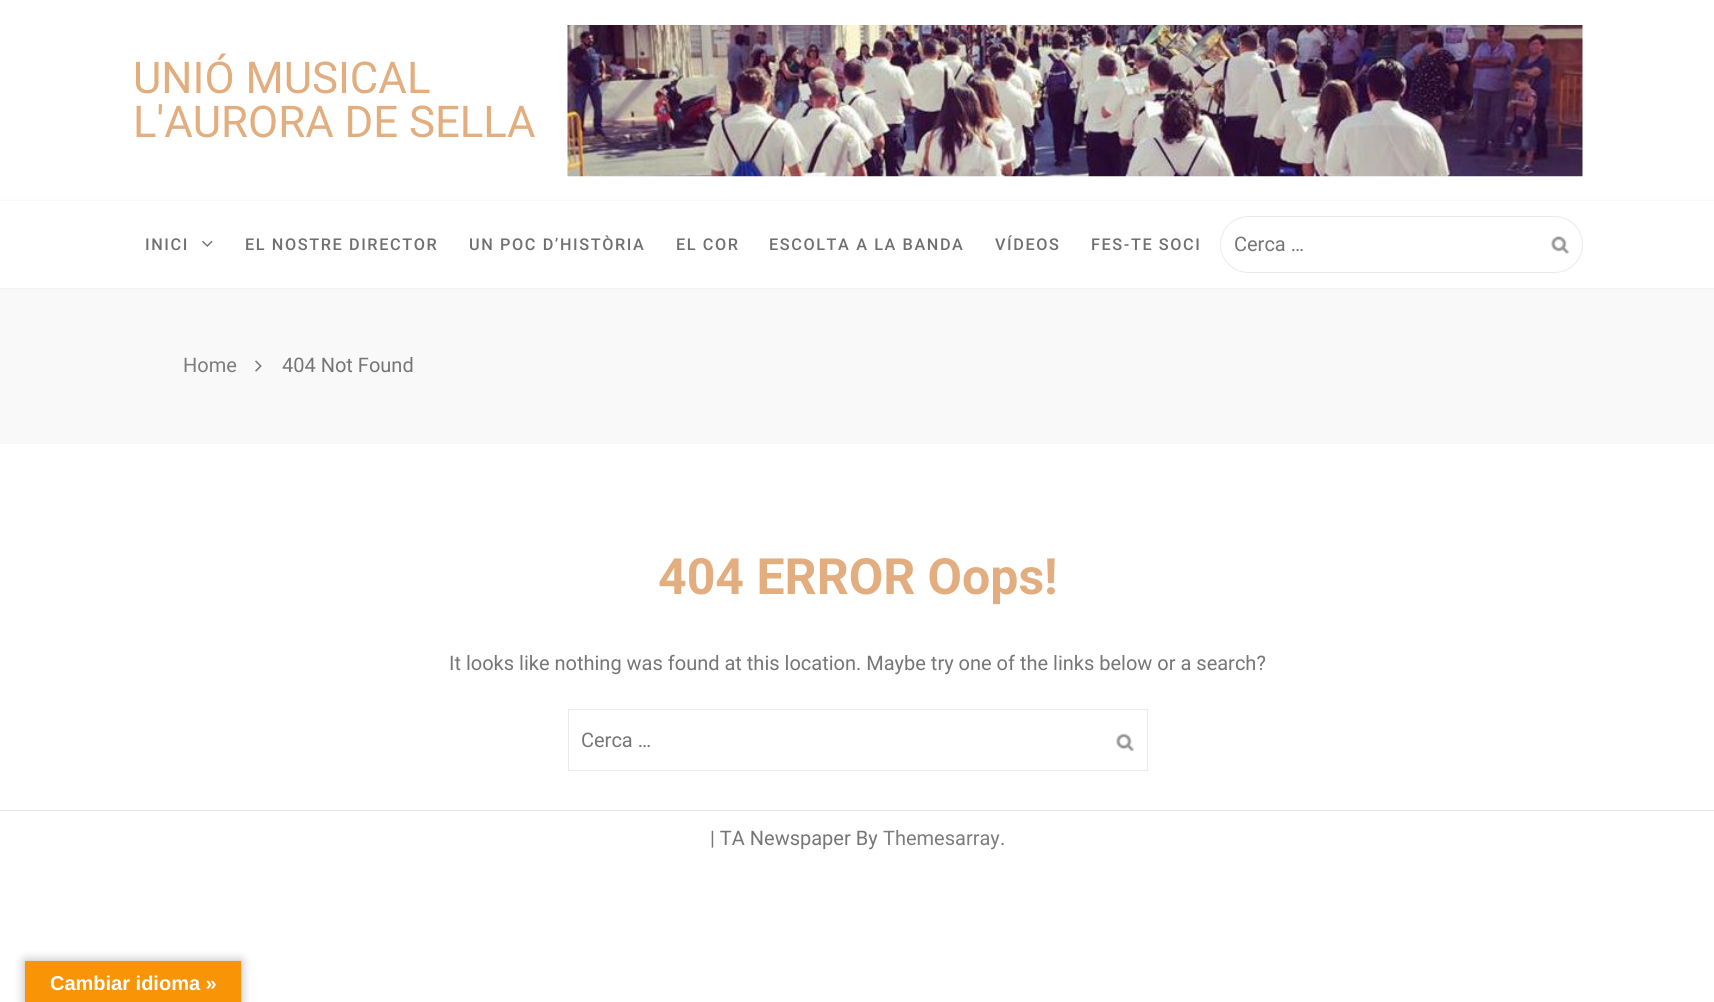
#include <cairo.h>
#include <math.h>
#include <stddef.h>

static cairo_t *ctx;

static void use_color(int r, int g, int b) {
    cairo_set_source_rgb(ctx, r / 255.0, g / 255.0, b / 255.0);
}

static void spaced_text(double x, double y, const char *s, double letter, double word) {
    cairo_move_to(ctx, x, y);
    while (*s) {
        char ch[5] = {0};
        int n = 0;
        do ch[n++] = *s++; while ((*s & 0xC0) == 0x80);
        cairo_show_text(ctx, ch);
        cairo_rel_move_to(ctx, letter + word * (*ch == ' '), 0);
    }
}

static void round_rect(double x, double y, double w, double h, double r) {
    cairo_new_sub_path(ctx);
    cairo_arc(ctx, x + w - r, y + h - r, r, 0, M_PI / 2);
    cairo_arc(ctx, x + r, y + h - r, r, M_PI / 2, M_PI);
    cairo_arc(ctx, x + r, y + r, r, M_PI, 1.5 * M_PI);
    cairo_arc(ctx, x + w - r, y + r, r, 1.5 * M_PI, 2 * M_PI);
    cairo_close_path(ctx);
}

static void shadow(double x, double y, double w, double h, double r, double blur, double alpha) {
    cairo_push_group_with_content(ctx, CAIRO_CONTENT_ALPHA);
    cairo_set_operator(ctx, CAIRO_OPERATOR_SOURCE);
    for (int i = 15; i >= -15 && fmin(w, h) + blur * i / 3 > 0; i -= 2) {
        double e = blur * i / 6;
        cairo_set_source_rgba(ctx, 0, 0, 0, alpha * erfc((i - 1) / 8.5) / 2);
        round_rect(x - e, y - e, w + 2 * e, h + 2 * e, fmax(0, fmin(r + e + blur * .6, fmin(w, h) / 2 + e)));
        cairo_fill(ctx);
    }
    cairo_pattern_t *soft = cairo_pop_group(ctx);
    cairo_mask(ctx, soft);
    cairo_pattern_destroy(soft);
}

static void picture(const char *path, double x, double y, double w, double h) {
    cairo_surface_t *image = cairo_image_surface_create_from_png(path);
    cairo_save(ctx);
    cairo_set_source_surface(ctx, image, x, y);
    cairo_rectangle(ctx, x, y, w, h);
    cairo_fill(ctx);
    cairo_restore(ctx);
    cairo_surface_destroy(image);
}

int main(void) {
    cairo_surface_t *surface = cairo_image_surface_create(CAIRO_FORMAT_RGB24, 1714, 1002);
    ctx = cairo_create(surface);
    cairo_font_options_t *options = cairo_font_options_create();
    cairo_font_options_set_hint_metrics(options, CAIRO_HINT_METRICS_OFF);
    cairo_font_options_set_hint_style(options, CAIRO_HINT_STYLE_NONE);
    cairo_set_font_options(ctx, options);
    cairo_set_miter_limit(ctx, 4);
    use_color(255, 255, 255);
    cairo_paint(ctx);
    cairo_select_font_face(ctx, "Roboto", CAIRO_FONT_SLANT_NORMAL, CAIRO_FONT_WEIGHT_NORMAL);
    cairo_set_font_size(ctx, 43.75);
    use_color(226, 174, 127);
    cairo_move_to(ctx, 133, 93);
    cairo_show_text(ctx, "UNIÓ MUSICAL");
    cairo_move_to(ctx, 133, 137);
    cairo_show_text(ctx, "L'AURORA DE SELLA");
    picture("img1.png", 567, 25, 1016, 152);
    use_color(249, 249, 249);
    cairo_rectangle(ctx, 0, 288, 1714, 156);
    cairo_fill(ctx);
    use_color(235, 235, 235);
    shadow(0, 201, 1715, 87, 0, 1, 1);
    use_color(255, 255, 255);
    cairo_rectangle(ctx, 0, 201, 1714, 87);
    cairo_fill(ctx);
    cairo_select_font_face(ctx, "Roboto Medium", CAIRO_FONT_SLANT_NORMAL, CAIRO_FONT_WEIGHT_NORMAL);
    cairo_set_font_size(ctx, 16.25);
    use_color(112, 112, 112);
    spaced_text(145, 250, "INICI", 1.6, 0);
    picture("img2.png", 202, 240, 11, 7);
    spaced_text(245, 250, "EL NOSTRE DIRECTOR", 1.6, 0);
    spaced_text(469, 250, "UN POC D’HISTÒRIA", 1.6, 0);
    spaced_text(676, 250, "EL COR", 1.6, 0);
    spaced_text(769, 250, "ESCOLTA A LA BANDA", 1.6, 0);
    spaced_text(995, 250, "VÍDEOS", 1.6, 0);
    spaced_text(1091, 250, "FES-TE SOCI", 1.6, 0);
    round_rect(1220.5, 216.5, 362, 56, 28);
    use_color(234, 234, 234);
    cairo_set_line_width(ctx, 1);
    cairo_stroke(ctx);
    cairo_select_font_face(ctx, "Roboto", CAIRO_FONT_SLANT_NORMAL, CAIRO_FONT_WEIGHT_NORMAL);
    cairo_set_font_size(ctx, 20);
    use_color(119, 118, 118);
    cairo_move_to(ctx, 1234, 251);
    cairo_show_text(ctx, "Cerca …");
    picture("img3.png", 1551, 236, 18, 18);
    use_color(125, 125, 125);
    cairo_move_to(ctx, 183, 372);
    cairo_show_text(ctx, "Home");
    picture("img4.png", 255, 360, 7, 12);
    use_color(119, 118, 118);
    cairo_move_to(ctx, 282, 372);
    cairo_show_text(ctx, "404 Not Found");
    cairo_select_font_face(ctx, "Roboto", CAIRO_FONT_SLANT_NORMAL, CAIRO_FONT_WEIGHT_BOLD);
    cairo_set_font_size(ctx, 50);
    use_color(226, 174, 127);
    cairo_move_to(ctx, 658, 594);
    cairo_show_text(ctx, "404 ERROR Oops!");
    cairo_select_font_face(ctx, "Roboto", CAIRO_FONT_SLANT_NORMAL, CAIRO_FONT_WEIGHT_NORMAL);
    cairo_set_font_size(ctx, 20);
    use_color(119, 118, 118);
    cairo_move_to(ctx, 449, 670);
    cairo_show_text(ctx, "It looks like nothing was found at this location. Maybe try one of the links below or a search?");
    cairo_rectangle(ctx, 568.5, 709.5, 579, 61);
    use_color(234, 234, 234);
    cairo_stroke(ctx);
    use_color(119, 118, 118);
    cairo_move_to(ctx, 581, 747);
    cairo_show_text(ctx, "Cerca …");
    picture("img5.png", 1116, 733, 18, 19);
    use_color(229, 229, 229);
    cairo_rectangle(ctx, 0, 810, 1714, 1);
    cairo_fill(ctx);
    use_color(119, 118, 118);
    cairo_move_to(ctx, 710, 845);
    cairo_show_text(ctx, "| TA Newspaper By");
    use_color(125, 125, 125);
    cairo_move_to(ctx, 883, 845);
    cairo_show_text(ctx, "Themesarray");
    use_color(119, 118, 118);
    cairo_move_to(ctx, 1000, 845);
    cairo_show_text(ctx, ".");
    use_color(0, 0, 0);
    shadow(25, 961, 216, 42, 0, 5.5, 0.3);
    use_color(248, 148, 6);
    cairo_rectangle(ctx, 25, 961, 216, 41);
    cairo_fill(ctx);
    cairo_select_font_face(ctx, "Liberation Sans", CAIRO_FONT_SLANT_NORMAL, CAIRO_FONT_WEIGHT_BOLD);
    use_color(255, 255, 255);
    cairo_move_to(ctx, 50, 990);
    cairo_show_text(ctx, "Cambiar idioma »");
    cairo_surface_write_to_png(surface, "result.png");
    cairo_font_options_destroy(options);
    cairo_destroy(ctx);
    cairo_surface_destroy(surface);
    return 0;
}
